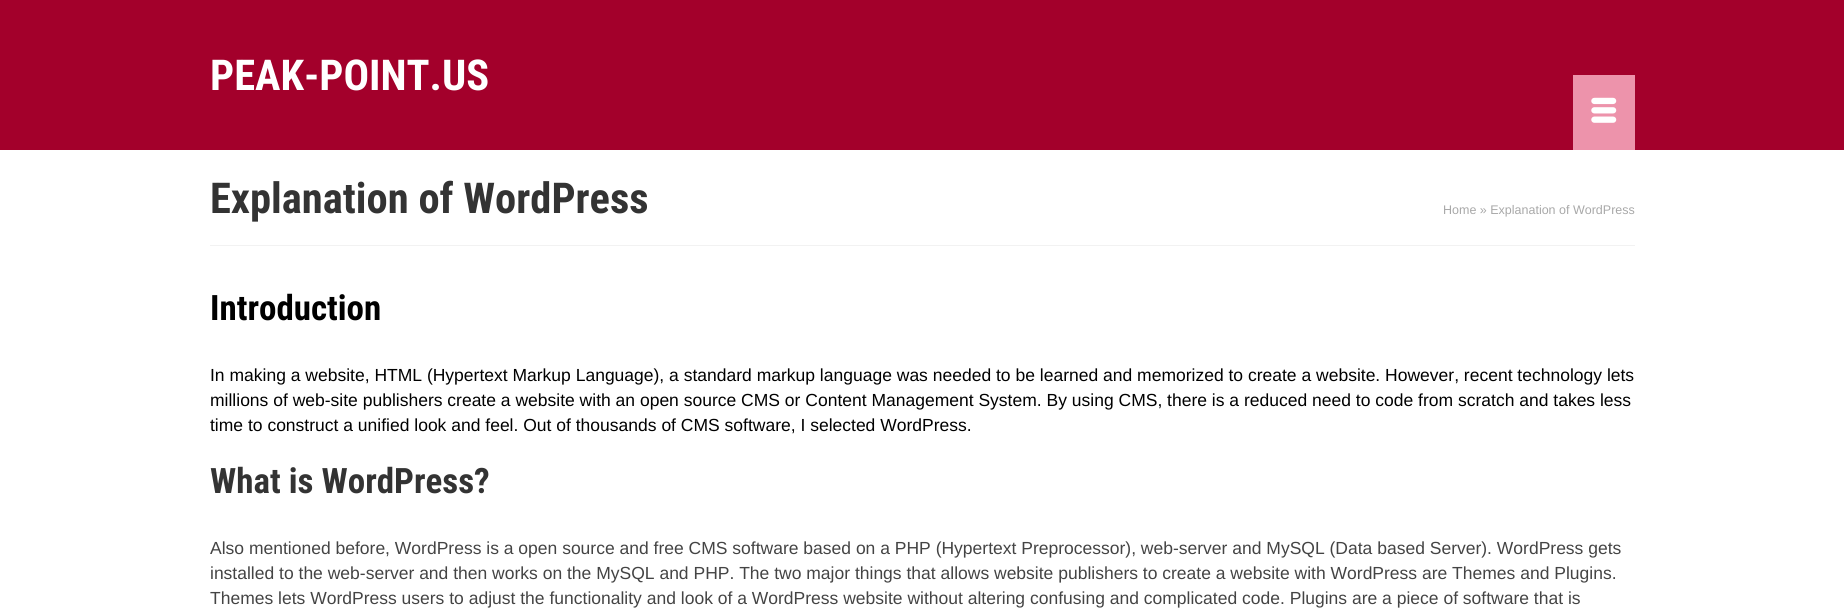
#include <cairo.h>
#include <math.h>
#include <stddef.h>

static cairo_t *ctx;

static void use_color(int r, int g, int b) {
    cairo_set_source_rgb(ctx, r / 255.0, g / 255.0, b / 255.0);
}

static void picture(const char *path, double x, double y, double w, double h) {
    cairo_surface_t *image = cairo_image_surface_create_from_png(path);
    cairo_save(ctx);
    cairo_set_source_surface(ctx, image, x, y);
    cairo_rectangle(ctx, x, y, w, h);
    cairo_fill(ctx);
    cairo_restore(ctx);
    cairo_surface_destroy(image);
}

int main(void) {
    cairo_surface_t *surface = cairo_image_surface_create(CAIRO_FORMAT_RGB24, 1844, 608);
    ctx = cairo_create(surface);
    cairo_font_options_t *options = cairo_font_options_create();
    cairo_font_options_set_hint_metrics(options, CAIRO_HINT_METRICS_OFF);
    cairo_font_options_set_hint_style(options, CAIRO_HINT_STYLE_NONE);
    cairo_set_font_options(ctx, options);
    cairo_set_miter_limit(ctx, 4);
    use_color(255, 255, 255);
    cairo_paint(ctx);
    use_color(163, 0, 43);
    cairo_rectangle(ctx, 0, 0, 1844, 150);
    cairo_fill(ctx);
    cairo_select_font_face(ctx, "Roboto Condensed", CAIRO_FONT_SLANT_NORMAL, CAIRO_FONT_WEIGHT_BOLD);
    cairo_set_font_size(ctx, 42.5);
    use_color(255, 255, 255);
    cairo_move_to(ctx, 210, 90);
    cairo_show_text(ctx, "PEAK-POINT.US");
    use_color(237, 147, 171);
    cairo_rectangle(ctx, 1573, 75, 62, 75);
    cairo_fill(ctx);
    picture("img1.png", 1591, 97, 26, 26);
    use_color(242, 242, 242);
    cairo_rectangle(ctx, 210, 245, 1425, 1);
    cairo_fill(ctx);
    use_color(51, 51, 51);
    cairo_move_to(ctx, 210, 213);
    cairo_show_text(ctx, "Explanation of WordPress");
    cairo_select_font_face(ctx, "Liberation Sans", CAIRO_FONT_SLANT_NORMAL, CAIRO_FONT_WEIGHT_NORMAL);
    cairo_set_font_size(ctx, 12.5);
    use_color(168, 168, 168);
    cairo_move_to(ctx, 1443, 214);
    cairo_show_text(ctx, "Home » Explanation of WordPress");
    cairo_select_font_face(ctx, "Roboto Condensed", CAIRO_FONT_SLANT_NORMAL, CAIRO_FONT_WEIGHT_BOLD);
    cairo_set_font_size(ctx, 35);
    use_color(0, 0, 0);
    cairo_move_to(ctx, 210, 320);
    cairo_show_text(ctx, "Introduction");
    cairo_select_font_face(ctx, "Liberation Sans", CAIRO_FONT_SLANT_NORMAL, CAIRO_FONT_WEIGHT_NORMAL);
    cairo_set_font_size(ctx, 17.5);
    cairo_move_to(ctx, 210, 381);
    cairo_show_text(ctx, "In making a website, HTML (Hypertext Markup Language), a standard markup language was needed to be learned and memorized to create a website. However, recent technology lets");
    cairo_move_to(ctx, 210, 406);
    cairo_show_text(ctx, "millions of web-site publishers create a website with an open source CMS or Content Management System. By using CMS, there is a reduced need to code from scratch and takes less");
    cairo_move_to(ctx, 210, 431);
    cairo_show_text(ctx, "time to construct a unified look and feel. Out of thousands of CMS software, I selected WordPress.");
    cairo_select_font_face(ctx, "Roboto Condensed", CAIRO_FONT_SLANT_NORMAL, CAIRO_FONT_WEIGHT_BOLD);
    cairo_set_font_size(ctx, 35);
    use_color(51, 51, 51);
    cairo_move_to(ctx, 210, 493);
    cairo_show_text(ctx, "What is WordPress?");
    cairo_select_font_face(ctx, "Liberation Sans", CAIRO_FONT_SLANT_NORMAL, CAIRO_FONT_WEIGHT_NORMAL);
    cairo_set_font_size(ctx, 17.5);
    use_color(68, 68, 68);
    cairo_move_to(ctx, 210, 554);
    cairo_show_text(ctx, "Also mentioned before, WordPress is a open source and free CMS software based on a PHP (Hypertext Preprocessor), web-server and MySQL (Data based Server). WordPress gets");
    cairo_move_to(ctx, 210, 579);
    cairo_show_text(ctx, "installed to the web-server and then works on the MySQL and PHP. The two major things that allows website publishers to create a website with WordPress are Themes and Plugins.");
    cairo_move_to(ctx, 210, 604);
    cairo_show_text(ctx, "Themes lets WordPress users to adjust the functionality and look of a WordPress website without altering confusing and complicated code. Plugins are a piece of software that is");
    cairo_surface_write_to_png(surface, "result.png");
    cairo_font_options_destroy(options);
    cairo_destroy(ctx);
    cairo_surface_destroy(surface);
    return 0;
}
